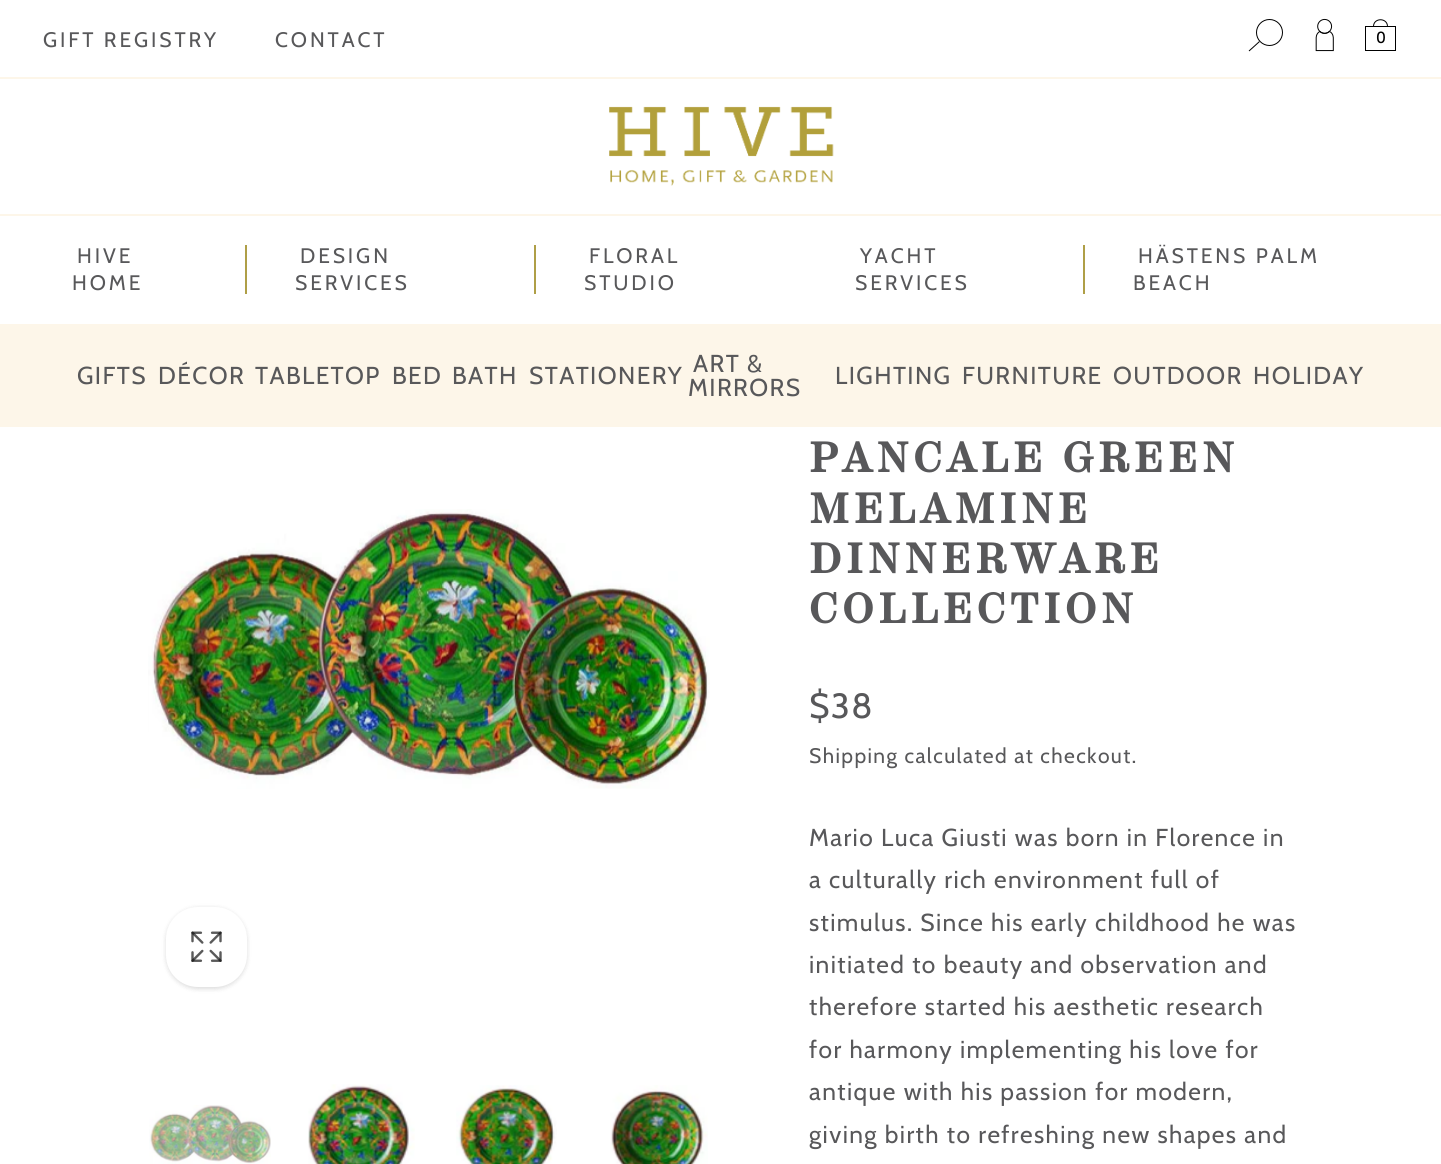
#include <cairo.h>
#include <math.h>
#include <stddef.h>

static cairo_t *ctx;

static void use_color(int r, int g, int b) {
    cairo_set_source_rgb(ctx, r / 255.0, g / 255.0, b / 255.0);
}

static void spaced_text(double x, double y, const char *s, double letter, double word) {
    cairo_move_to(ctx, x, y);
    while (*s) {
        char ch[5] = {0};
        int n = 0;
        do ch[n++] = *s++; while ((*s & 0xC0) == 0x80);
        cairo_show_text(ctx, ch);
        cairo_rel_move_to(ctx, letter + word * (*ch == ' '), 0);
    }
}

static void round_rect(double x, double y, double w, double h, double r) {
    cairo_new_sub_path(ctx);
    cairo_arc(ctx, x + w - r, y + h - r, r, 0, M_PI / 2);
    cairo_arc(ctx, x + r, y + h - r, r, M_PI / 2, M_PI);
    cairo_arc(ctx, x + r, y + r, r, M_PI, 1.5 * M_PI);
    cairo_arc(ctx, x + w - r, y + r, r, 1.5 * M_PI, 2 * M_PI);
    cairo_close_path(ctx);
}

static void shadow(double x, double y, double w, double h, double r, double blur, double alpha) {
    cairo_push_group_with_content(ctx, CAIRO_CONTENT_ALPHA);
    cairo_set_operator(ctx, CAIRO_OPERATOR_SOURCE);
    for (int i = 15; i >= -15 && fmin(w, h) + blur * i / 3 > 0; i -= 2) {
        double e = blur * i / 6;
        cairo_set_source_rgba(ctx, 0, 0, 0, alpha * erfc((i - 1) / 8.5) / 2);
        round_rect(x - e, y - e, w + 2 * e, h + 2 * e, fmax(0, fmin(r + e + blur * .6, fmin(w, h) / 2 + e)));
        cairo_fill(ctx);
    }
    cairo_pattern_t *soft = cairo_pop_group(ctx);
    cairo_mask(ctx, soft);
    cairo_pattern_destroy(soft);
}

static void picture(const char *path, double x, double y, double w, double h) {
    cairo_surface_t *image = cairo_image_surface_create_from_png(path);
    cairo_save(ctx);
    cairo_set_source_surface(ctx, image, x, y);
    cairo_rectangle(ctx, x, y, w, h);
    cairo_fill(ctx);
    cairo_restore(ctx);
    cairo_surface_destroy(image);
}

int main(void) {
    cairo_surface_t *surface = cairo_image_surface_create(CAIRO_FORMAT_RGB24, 1441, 1164);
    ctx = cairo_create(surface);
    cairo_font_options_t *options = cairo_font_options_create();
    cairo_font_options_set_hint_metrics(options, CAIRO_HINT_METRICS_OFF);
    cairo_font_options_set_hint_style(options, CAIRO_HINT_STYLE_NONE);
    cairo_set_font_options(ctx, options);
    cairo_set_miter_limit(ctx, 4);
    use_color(255, 255, 255);
    cairo_paint(ctx);
    cairo_select_font_face(ctx, "Cabin", CAIRO_FONT_SLANT_NORMAL, CAIRO_FONT_WEIGHT_NORMAL);
    cairo_set_font_size(ctx, 21);
    use_color(88, 88, 90);
    spaced_text(43, 47, "GIFT REGISTRY", 2.9, 0);
    spaced_text(275, 47, "CONTACT", 2.9, 0);
    cairo_new_path(ctx);
    cairo_arc(ctx, 1269.5, 32.5, 13, 0, 2 * M_PI);
    use_color(0, 0, 0);
    cairo_set_line_width(ctx, 1);
    cairo_stroke(ctx);
    cairo_new_path(ctx);
    cairo_move_to(ctx, 1249, 51);
    cairo_line_to(ctx, 1259.5, 41.5);
    cairo_stroke(ctx);
    picture("img1.png", 1315, 18, 19, 34);
    cairo_new_path(ctx);
    cairo_move_to(ctx, 1387.5, 26.5);
    cairo_curve_to(ctx, 1387.5, 17.5, 1373.5, 17.5, 1373.5, 26.5);
    cairo_close_path(ctx);
    cairo_stroke(ctx);
    cairo_rectangle(ctx, 1365.5, 26.5, 30, 24);
    cairo_stroke(ctx);
    cairo_select_font_face(ctx, "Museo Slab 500", CAIRO_FONT_SLANT_NORMAL, CAIRO_FONT_WEIGHT_NORMAL);
    cairo_set_font_size(ctx, 16);
    spaced_text(1376, 43, "0", 1.4, 0);
    use_color(253, 246, 233);
    cairo_rectangle(ctx, 0, 77, 1441, 2);
    cairo_fill(ctx);
    cairo_rectangle(ctx, 0, 214, 1441, 2);
    cairo_fill(ctx);
    picture("img2.png", 609, 106, 225, 80);
    cairo_rectangle(ctx, 0, 324, 1441, 103);
    cairo_fill(ctx);
    cairo_select_font_face(ctx, "Cabin", CAIRO_FONT_SLANT_NORMAL, CAIRO_FONT_WEIGHT_NORMAL);
    cairo_set_font_size(ctx, 21);
    use_color(88, 88, 90);
    spaced_text(77, 263, "HIVE", 2.9, 0);
    spaced_text(72, 290, "HOME", 2.9, 0);
    use_color(175, 159, 71);
    cairo_rectangle(ctx, 245, 245, 2, 49);
    cairo_fill(ctx);
    use_color(88, 88, 90);
    spaced_text(300, 263, "DESIGN", 2.9, 0);
    spaced_text(295, 290, "SERVICES", 2.9, 0);
    use_color(175, 159, 71);
    cairo_rectangle(ctx, 534, 245, 2, 49);
    cairo_fill(ctx);
    use_color(88, 88, 90);
    spaced_text(589, 263, "FLORAL", 2.9, 0);
    spaced_text(584, 290, "STUDIO", 2.9, 0);
    spaced_text(860, 263, "YACHT", 2.9, 0);
    spaced_text(855, 290, "SERVICES", 2.9, 0);
    use_color(175, 159, 71);
    cairo_rectangle(ctx, 1083, 245, 2, 49);
    cairo_fill(ctx);
    use_color(88, 88, 90);
    spaced_text(1138, 263, "HÄSTENS PALM", 2.9, 0);
    spaced_text(1133, 290, "BEACH", 2.9, 0);
    cairo_set_font_size(ctx, 24.5);
    spaced_text(77, 384, "GIFTS", 1.4, 0);
    spaced_text(158, 384, "DÉCOR", 1.4, 0);
    spaced_text(255, 384, "TABLETOP", 1.4, 0);
    spaced_text(392, 384, "BED", 1.4, 0);
    spaced_text(452, 384, "BATH", 1.4, 0);
    spaced_text(529, 384, "STATIONERY", 1.4, 0);
    spaced_text(693, 372, "ART &", 1.4, 0);
    spaced_text(688, 396, "MIRRORS", 1.4, 0);
    spaced_text(835, 384, "LIGHTING", 1.4, 0);
    spaced_text(962, 384, "FURNITURE", 1.4, 0);
    spaced_text(1113, 384, "OUTDOOR", 1.4, 0);
    spaced_text(1253, 384, "HOLIDAY", 1.4, 0);
    picture("img3.png", 148, 509, 562, 280);
    use_color(18, 18, 18);
    shadow(166, 908, 81, 81, 32, 2, 0.06);
    shadow(166, 908, 81, 81, 32, 2.5, 0.1);
    use_color(255, 255, 255);
    round_rect(166, 907, 81, 80, 32);
    cairo_fill(ctx);
    picture("img4.png", 191, 931, 31, 31);
    picture("img5.png", 149, 1105, 122, 59);
    picture("img6.png", 308, 1084, 107, 80);
    picture("img7.png", 456, 1085, 101, 79);
    picture("img8.png", 610, 1085, 98, 79);
    cairo_select_font_face(ctx, "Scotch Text", CAIRO_FONT_SLANT_NORMAL, CAIRO_FONT_WEIGHT_BOLD);
    cairo_set_font_size(ctx, 42);
    use_color(88, 88, 90);
    spaced_text(809, 472, "PANCALE GREEN", 4.75, 0);
    spaced_text(809, 523, "MELAMINE", 4.75, 0);
    spaced_text(809, 573, "DINNERWARE", 4.75, 0);
    spaced_text(809, 623, "COLLECTION", 4.75, 0);
    cairo_select_font_face(ctx, "Cabin", CAIRO_FONT_SLANT_NORMAL, CAIRO_FONT_WEIGHT_NORMAL);
    cairo_set_font_size(ctx, 35);
    spaced_text(809, 718, "$38", 1.4, 0);
    cairo_set_font_size(ctx, 21);
    spaced_text(809, 763, "Shipping calculated at checkout.", 1.4, 0);
    cairo_set_font_size(ctx, 24.5);
    spaced_text(809, 846, "Mario Luca Giusti was born in Florence in", 1.4, 0);
    spaced_text(809, 888, "a culturally rich environment full of", 1.4, 0);
    spaced_text(809, 931, "stimulus. Since his early childhood he was", 1.4, 0);
    spaced_text(809, 973, "initiated to beauty and observation and", 1.4, 0);
    spaced_text(809, 1015, "therefore started his aesthetic research", 1.4, 0);
    spaced_text(809, 1058, "for harmony implementing his love for", 1.4, 0);
    spaced_text(809, 1100, "antique with his passion for modern,", 1.4, 0);
    spaced_text(809, 1143, "giving birth to refreshing new shapes and", 1.4, 0);
    cairo_surface_write_to_png(surface, "result.png");
    cairo_font_options_destroy(options);
    cairo_destroy(ctx);
    cairo_surface_destroy(surface);
    return 0;
}
